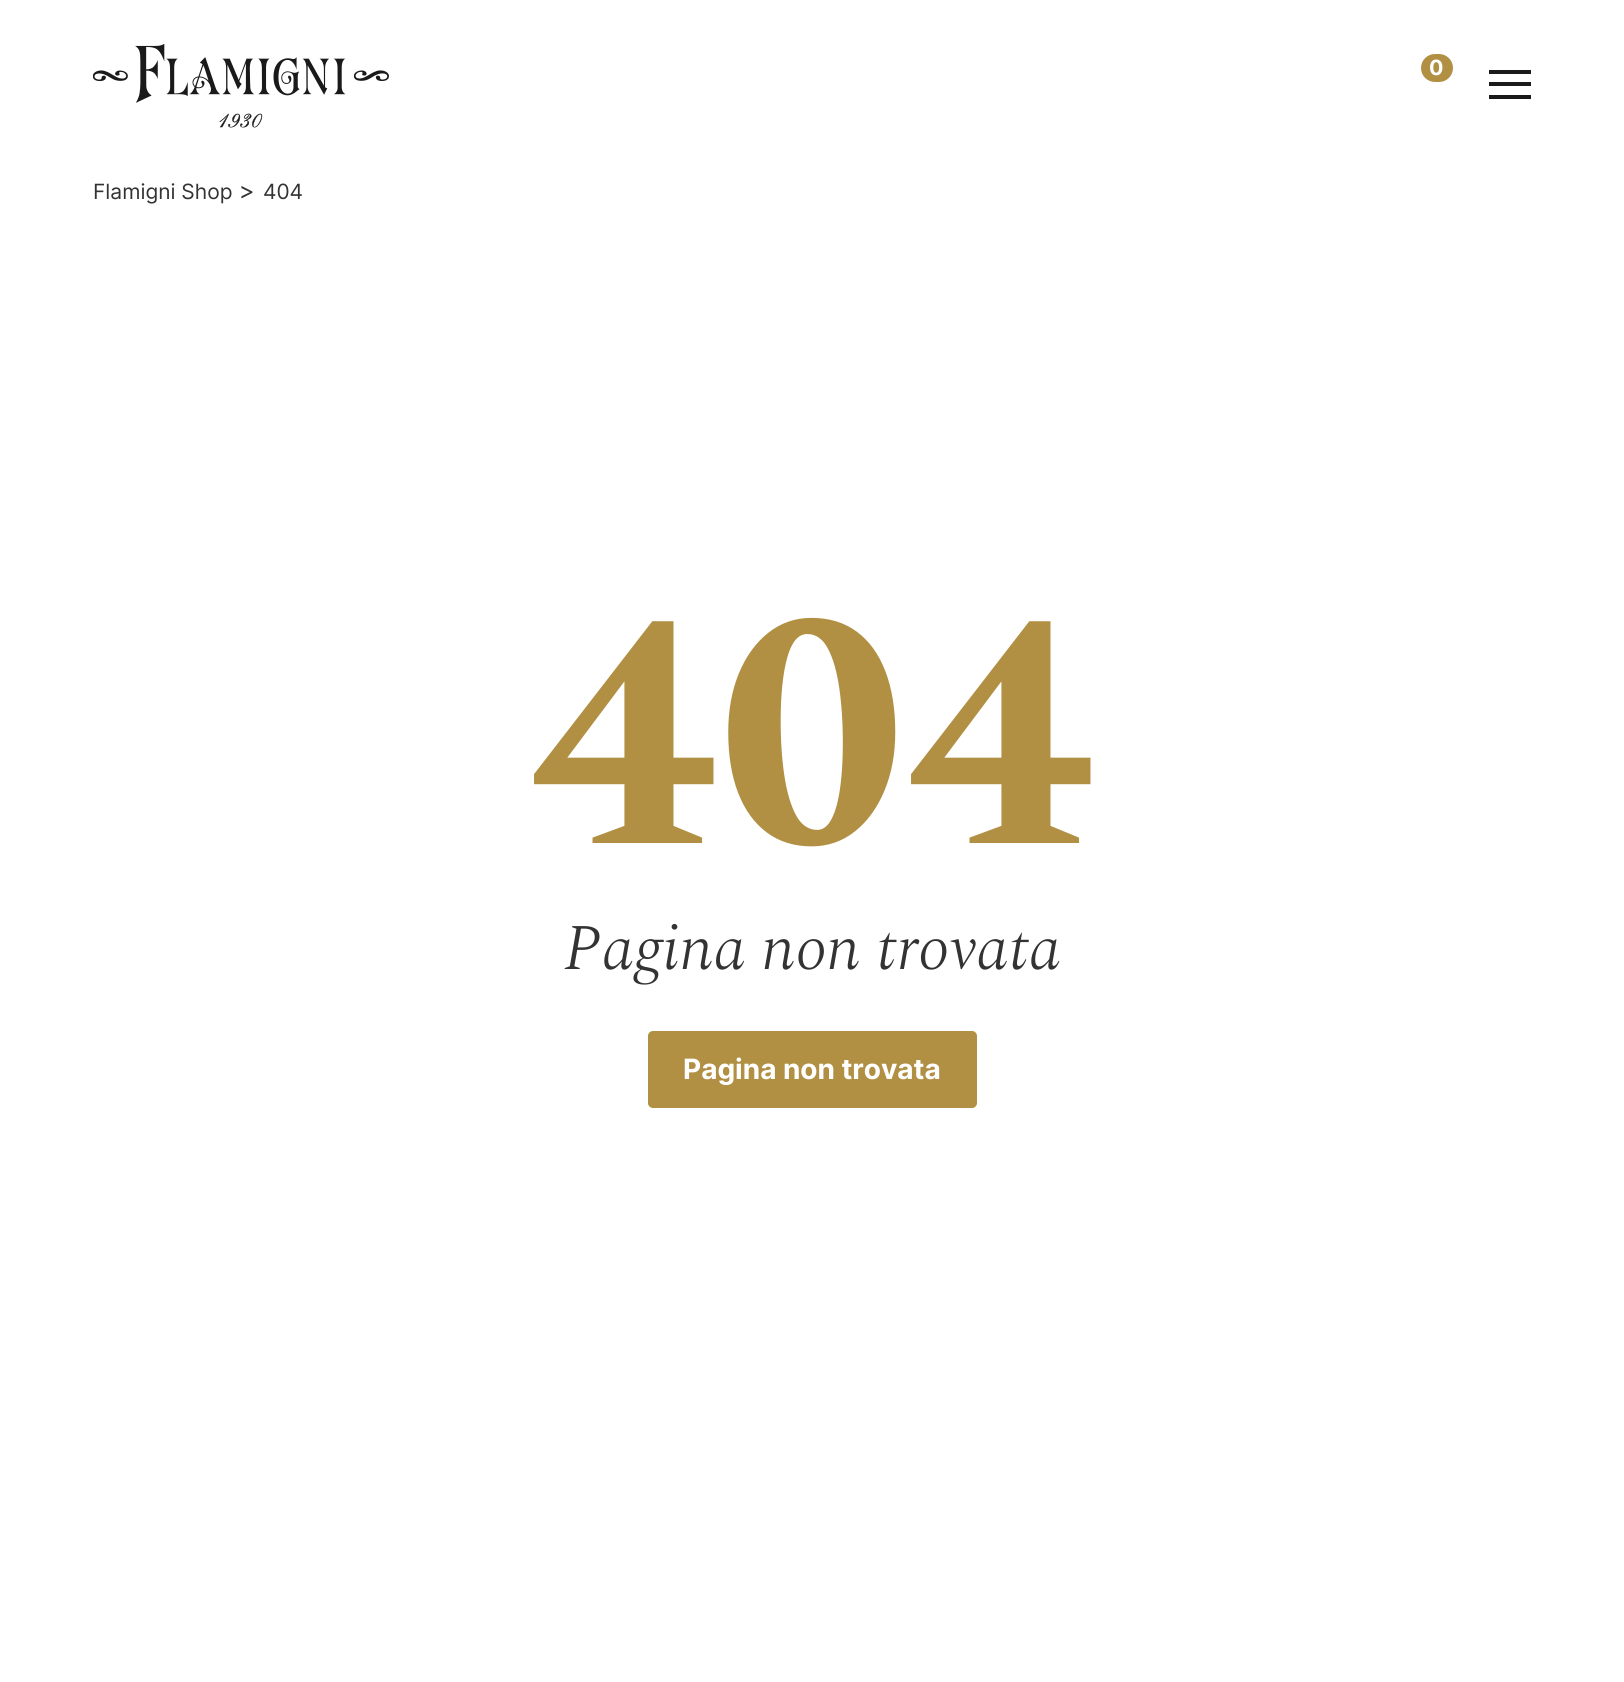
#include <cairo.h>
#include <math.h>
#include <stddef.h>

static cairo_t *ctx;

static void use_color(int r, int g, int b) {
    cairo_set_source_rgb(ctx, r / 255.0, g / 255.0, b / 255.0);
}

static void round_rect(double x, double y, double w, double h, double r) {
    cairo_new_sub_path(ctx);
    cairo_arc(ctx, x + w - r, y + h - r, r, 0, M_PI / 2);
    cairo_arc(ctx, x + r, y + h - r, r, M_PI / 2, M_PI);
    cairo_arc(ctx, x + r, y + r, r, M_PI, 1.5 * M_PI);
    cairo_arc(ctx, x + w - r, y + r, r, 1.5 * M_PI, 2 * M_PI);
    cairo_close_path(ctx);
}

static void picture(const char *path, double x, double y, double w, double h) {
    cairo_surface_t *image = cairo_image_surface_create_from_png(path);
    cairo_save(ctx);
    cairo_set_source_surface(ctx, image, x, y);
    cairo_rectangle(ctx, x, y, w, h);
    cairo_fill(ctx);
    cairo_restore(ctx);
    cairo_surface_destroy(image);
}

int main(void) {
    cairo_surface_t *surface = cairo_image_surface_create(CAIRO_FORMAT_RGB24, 1624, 1682);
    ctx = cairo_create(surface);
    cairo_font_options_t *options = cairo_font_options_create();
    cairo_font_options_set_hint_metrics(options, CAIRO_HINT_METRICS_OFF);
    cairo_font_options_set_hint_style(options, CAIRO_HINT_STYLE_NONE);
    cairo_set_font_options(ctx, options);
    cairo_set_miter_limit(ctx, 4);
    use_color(255, 255, 255);
    cairo_paint(ctx);
    picture("img1.png", 93, 43, 296, 85);
    use_color(177, 143, 67);
    round_rect(1421, 54, 32, 28, 14);
    cairo_fill(ctx);
    cairo_select_font_face(ctx, "Inter", CAIRO_FONT_SLANT_NORMAL, CAIRO_FONT_WEIGHT_BOLD);
    cairo_set_font_size(ctx, 21);
    use_color(255, 255, 255);
    cairo_move_to(ctx, 1429, 75);
    cairo_show_text(ctx, "0");
    use_color(26, 26, 26);
    cairo_rectangle(ctx, 1489, 82, 42, 4);
    cairo_fill(ctx);
    cairo_rectangle(ctx, 1489, 70, 42, 4);
    cairo_fill(ctx);
    cairo_rectangle(ctx, 1489, 95, 42, 4);
    cairo_fill(ctx);
    cairo_select_font_face(ctx, "Inter", CAIRO_FONT_SLANT_NORMAL, CAIRO_FONT_WEIGHT_NORMAL);
    use_color(51, 51, 51);
    cairo_move_to(ctx, 93, 199);
    cairo_show_text(ctx, "Flamigni Shop");
    cairo_set_font_size(ctx, 24);
    cairo_move_to(ctx, 239, 199);
    cairo_show_text(ctx, ">");
    cairo_set_font_size(ctx, 21);
    cairo_move_to(ctx, 263, 199);
    cairo_show_text(ctx, "404");
    cairo_select_font_face(ctx, "Spectral", CAIRO_FONT_SLANT_NORMAL, CAIRO_FONT_WEIGHT_BOLD);
    cairo_set_font_size(ctx, 336);
    use_color(177, 143, 67);
    cairo_move_to(ctx, 529, 843);
    cairo_show_text(ctx, "404");
    cairo_select_font_face(ctx, "Spectral Light", CAIRO_FONT_SLANT_ITALIC, CAIRO_FONT_WEIGHT_NORMAL);
    cairo_set_font_size(ctx, 65);
    use_color(51, 51, 51);
    cairo_move_to(ctx, 564, 969);
    cairo_show_text(ctx, "Pagina non trovata");
    use_color(177, 143, 67);
    round_rect(648, 1031, 329, 77, 5);
    cairo_fill(ctx);
    cairo_select_font_face(ctx, "Inter", CAIRO_FONT_SLANT_NORMAL, CAIRO_FONT_WEIGHT_BOLD);
    cairo_set_font_size(ctx, 28);
    use_color(255, 255, 255);
    cairo_move_to(ctx, 683, 1079);
    cairo_show_text(ctx, "Pagina non trovata");
    cairo_surface_write_to_png(surface, "result.png");
    cairo_font_options_destroy(options);
    cairo_destroy(ctx);
    cairo_surface_destroy(surface);
    return 0;
}
